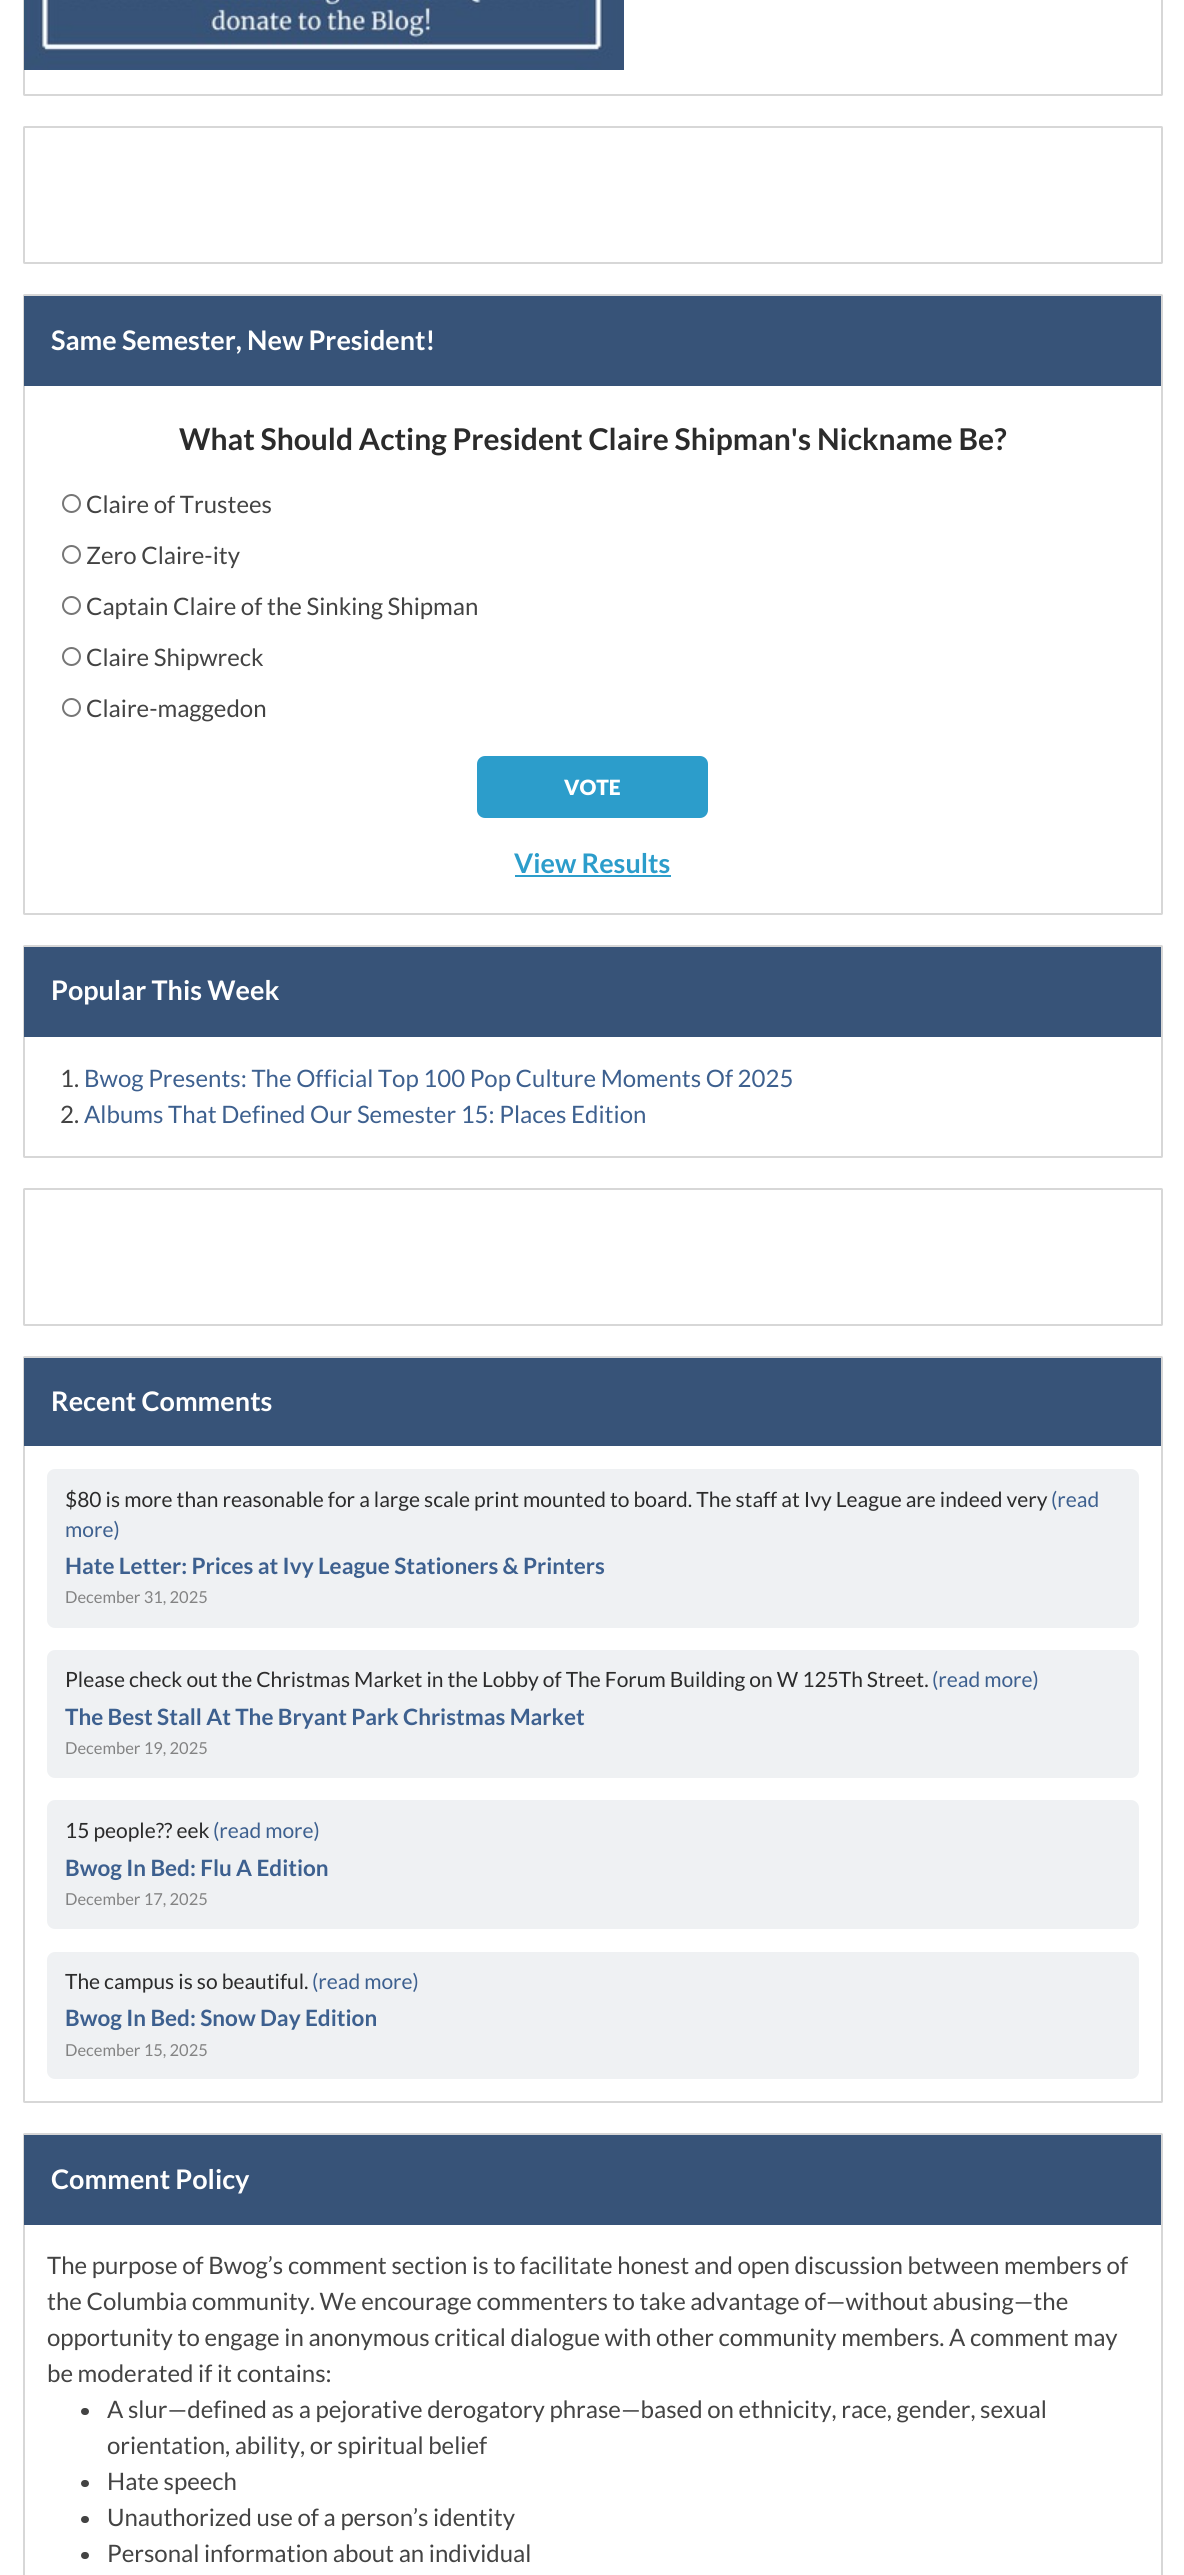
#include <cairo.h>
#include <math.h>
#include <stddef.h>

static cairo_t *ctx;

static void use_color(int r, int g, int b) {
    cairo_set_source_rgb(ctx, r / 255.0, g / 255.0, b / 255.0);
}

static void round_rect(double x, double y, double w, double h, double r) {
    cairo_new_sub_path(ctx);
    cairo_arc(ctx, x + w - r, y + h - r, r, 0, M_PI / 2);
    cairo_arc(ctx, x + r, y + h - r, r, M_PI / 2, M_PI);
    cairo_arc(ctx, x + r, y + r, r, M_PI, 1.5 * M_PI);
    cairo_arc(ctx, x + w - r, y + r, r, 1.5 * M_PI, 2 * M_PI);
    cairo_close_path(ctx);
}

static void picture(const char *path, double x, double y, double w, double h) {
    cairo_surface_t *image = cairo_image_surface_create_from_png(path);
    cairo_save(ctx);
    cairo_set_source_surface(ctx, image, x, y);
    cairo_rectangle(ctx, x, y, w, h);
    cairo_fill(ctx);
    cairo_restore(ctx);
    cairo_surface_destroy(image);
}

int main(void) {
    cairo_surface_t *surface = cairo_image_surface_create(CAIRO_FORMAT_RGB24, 1184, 2575);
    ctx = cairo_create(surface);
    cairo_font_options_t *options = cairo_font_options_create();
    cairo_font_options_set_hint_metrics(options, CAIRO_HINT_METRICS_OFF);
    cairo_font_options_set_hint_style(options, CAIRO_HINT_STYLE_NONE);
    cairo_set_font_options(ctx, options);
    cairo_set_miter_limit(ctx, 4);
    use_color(255, 255, 255);
    cairo_paint(ctx);
    round_rect(24, -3, 1138, 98, 0.5);
    use_color(215, 215, 215);
    cairo_stroke(ctx);
    picture("img1.png", 24, 0, 600, 70);
    round_rect(24, 127, 1138, 136, 0.5);
    cairo_stroke(ctx);
    round_rect(24, 295, 1138, 619, 0.5);
    cairo_stroke(ctx);
    use_color(55, 83, 120);
    cairo_rectangle(ctx, 24, 296, 1137, 90);
    cairo_fill(ctx);
    cairo_select_font_face(ctx, "Lato", CAIRO_FONT_SLANT_NORMAL, CAIRO_FONT_WEIGHT_BOLD);
    cairo_set_font_size(ctx, 27);
    use_color(255, 255, 255);
    cairo_move_to(ctx, 51, 350);
    cairo_show_text(ctx, "Same Semester, New President!");
    cairo_set_font_size(ctx, 30);
    use_color(43, 43, 43);
    cairo_move_to(ctx, 179, 450);
    cairo_show_text(ctx, "What Should Acting President Claire Shipman's Nickname Be?");
    cairo_new_path(ctx);
    cairo_arc(ctx, 71.5, 503.5, 8.5, 0, 2 * M_PI);
    use_color(118, 118, 118);
    cairo_stroke(ctx);
    cairo_select_font_face(ctx, "Lato", CAIRO_FONT_SLANT_NORMAL, CAIRO_FONT_WEIGHT_NORMAL);
    cairo_set_font_size(ctx, 24);
    use_color(67, 67, 67);
    cairo_move_to(ctx, 86, 513);
    cairo_show_text(ctx, "Claire of Trustees");
    cairo_new_path(ctx);
    cairo_arc(ctx, 71.5, 554.5, 8.5, 0, 2 * M_PI);
    use_color(118, 118, 118);
    cairo_stroke(ctx);
    use_color(67, 67, 67);
    cairo_move_to(ctx, 86, 564);
    cairo_show_text(ctx, "Zero Claire-ity");
    cairo_new_path(ctx);
    cairo_arc(ctx, 71.5, 605.5, 8.5, 0, 2 * M_PI);
    use_color(118, 118, 118);
    cairo_stroke(ctx);
    use_color(67, 67, 67);
    cairo_move_to(ctx, 86, 615);
    cairo_show_text(ctx, "Captain Claire of the Sinking Shipman");
    cairo_new_path(ctx);
    cairo_arc(ctx, 71.5, 656.5, 8.5, 0, 2 * M_PI);
    use_color(118, 118, 118);
    cairo_stroke(ctx);
    use_color(67, 67, 67);
    cairo_move_to(ctx, 86, 666);
    cairo_show_text(ctx, "Claire Shipwreck");
    cairo_new_path(ctx);
    cairo_arc(ctx, 71.5, 707.5, 8.5, 0, 2 * M_PI);
    use_color(118, 118, 118);
    cairo_stroke(ctx);
    use_color(67, 67, 67);
    cairo_move_to(ctx, 86, 717);
    cairo_show_text(ctx, "Claire-maggedon");
    use_color(44, 157, 203);
    round_rect(477, 756, 231, 62, 8);
    cairo_fill(ctx);
    cairo_select_font_face(ctx, "Lato Black", CAIRO_FONT_SLANT_NORMAL, CAIRO_FONT_WEIGHT_NORMAL);
    cairo_set_font_size(ctx, 21);
    use_color(255, 255, 255);
    cairo_move_to(ctx, 564, 795);
    cairo_show_text(ctx, "VOTE");
    cairo_select_font_face(ctx, "Lato", CAIRO_FONT_SLANT_NORMAL, CAIRO_FONT_WEIGHT_BOLD);
    cairo_set_font_size(ctx, 27);
    use_color(44, 157, 203);
    cairo_move_to(ctx, 514, 873);
    cairo_show_text(ctx, "View Results");
    cairo_rectangle(ctx, 515, 875, 156, 2);
    cairo_fill(ctx);
    round_rect(24, 946, 1138, 211, 0.5);
    use_color(215, 215, 215);
    cairo_stroke(ctx);
    use_color(55, 83, 120);
    cairo_rectangle(ctx, 24, 947, 1137, 90);
    cairo_fill(ctx);
    use_color(255, 255, 255);
    cairo_move_to(ctx, 51, 1000);
    cairo_show_text(ctx, "Popular This Week");
    cairo_select_font_face(ctx, "Lato", CAIRO_FONT_SLANT_NORMAL, CAIRO_FONT_WEIGHT_NORMAL);
    cairo_set_font_size(ctx, 24);
    use_color(67, 67, 67);
    cairo_move_to(ctx, 60, 1087);
    cairo_show_text(ctx, "1.");
    use_color(61, 96, 143);
    cairo_move_to(ctx, 84, 1087);
    cairo_show_text(ctx, "Bwog Presents: The Official Top 100 Pop Culture Moments Of 2025");
    use_color(67, 67, 67);
    cairo_move_to(ctx, 60, 1123);
    cairo_show_text(ctx, "2.");
    use_color(61, 96, 143);
    cairo_move_to(ctx, 84, 1123);
    cairo_show_text(ctx, "Albums That Defined Our Semester 15: Places Edition");
    round_rect(24, 1189, 1138, 136, 0.5);
    use_color(215, 215, 215);
    cairo_stroke(ctx);
    round_rect(24, 1357, 1138, 745, 0.5);
    cairo_stroke(ctx);
    use_color(55, 83, 120);
    cairo_rectangle(ctx, 24, 1358, 1137, 88);
    cairo_fill(ctx);
    cairo_select_font_face(ctx, "Lato", CAIRO_FONT_SLANT_NORMAL, CAIRO_FONT_WEIGHT_BOLD);
    cairo_set_font_size(ctx, 27);
    use_color(255, 255, 255);
    cairo_move_to(ctx, 51, 1411);
    cairo_show_text(ctx, "Recent Comments");
    use_color(239, 241, 243);
    round_rect(47, 1469, 1092, 159, 8);
    cairo_fill(ctx);
    cairo_select_font_face(ctx, "Lato", CAIRO_FONT_SLANT_NORMAL, CAIRO_FONT_WEIGHT_NORMAL);
    cairo_set_font_size(ctx, 21);
    use_color(43, 43, 43);
    cairo_move_to(ctx, 65, 1507);
    cairo_show_text(ctx, "$80 is more than reasonable for a large scale print mounted to board. The staff at Ivy League are indeed very");
    use_color(61, 96, 143);
    cairo_move_to(ctx, 1051, 1507);
    cairo_show_text(ctx, "(read");
    cairo_move_to(ctx, 65, 1537);
    cairo_show_text(ctx, "more)");
    cairo_select_font_face(ctx, "Lato", CAIRO_FONT_SLANT_NORMAL, CAIRO_FONT_WEIGHT_BOLD);
    cairo_set_font_size(ctx, 22.5);
    cairo_move_to(ctx, 65, 1574);
    cairo_show_text(ctx, "Hate Letter: Prices at Ivy League Stationers & Printers");
    cairo_select_font_face(ctx, "Lato", CAIRO_FONT_SLANT_NORMAL, CAIRO_FONT_WEIGHT_NORMAL);
    cairo_set_font_size(ctx, 16.5);
    use_color(131, 131, 131);
    cairo_move_to(ctx, 65, 1603);
    cairo_show_text(ctx, "December 31, 2025");
    use_color(239, 241, 243);
    round_rect(47, 1650, 1092, 128, 8);
    cairo_fill(ctx);
    cairo_set_font_size(ctx, 21);
    use_color(43, 43, 43);
    cairo_move_to(ctx, 65, 1687);
    cairo_show_text(ctx, "Please check out the Christmas Market in the Lobby of The Forum Building on W 125Th Street.");
    use_color(61, 96, 143);
    cairo_move_to(ctx, 932, 1687);
    cairo_show_text(ctx, "(read more)");
    cairo_select_font_face(ctx, "Lato", CAIRO_FONT_SLANT_NORMAL, CAIRO_FONT_WEIGHT_BOLD);
    cairo_set_font_size(ctx, 22.5);
    cairo_move_to(ctx, 65, 1725);
    cairo_show_text(ctx, "The Best Stall At The Bryant Park Christmas Market");
    cairo_select_font_face(ctx, "Lato", CAIRO_FONT_SLANT_NORMAL, CAIRO_FONT_WEIGHT_NORMAL);
    cairo_set_font_size(ctx, 16.5);
    use_color(131, 131, 131);
    cairo_move_to(ctx, 65, 1754);
    cairo_show_text(ctx, "December 19, 2025");
    use_color(239, 241, 243);
    round_rect(47, 1800, 1092, 129, 8);
    cairo_fill(ctx);
    cairo_set_font_size(ctx, 21);
    use_color(43, 43, 43);
    cairo_move_to(ctx, 65, 1838);
    cairo_show_text(ctx, "15 people?\077 eek");
    use_color(61, 96, 143);
    cairo_move_to(ctx, 213, 1838);
    cairo_show_text(ctx, "(read more)");
    cairo_select_font_face(ctx, "Lato", CAIRO_FONT_SLANT_NORMAL, CAIRO_FONT_WEIGHT_BOLD);
    cairo_set_font_size(ctx, 22.5);
    cairo_move_to(ctx, 65, 1876);
    cairo_show_text(ctx, "Bwog In Bed: Flu A Edition");
    cairo_select_font_face(ctx, "Lato", CAIRO_FONT_SLANT_NORMAL, CAIRO_FONT_WEIGHT_NORMAL);
    cairo_set_font_size(ctx, 16.5);
    use_color(131, 131, 131);
    cairo_move_to(ctx, 65, 1905);
    cairo_show_text(ctx, "December 17, 2025");
    use_color(239, 241, 243);
    round_rect(47, 1952, 1092, 127, 8);
    cairo_fill(ctx);
    cairo_set_font_size(ctx, 21);
    use_color(43, 43, 43);
    cairo_move_to(ctx, 65, 1989);
    cairo_show_text(ctx, "The campus is so beautiful.");
    use_color(61, 96, 143);
    cairo_move_to(ctx, 312, 1989);
    cairo_show_text(ctx, "(read more)");
    cairo_select_font_face(ctx, "Lato", CAIRO_FONT_SLANT_NORMAL, CAIRO_FONT_WEIGHT_BOLD);
    cairo_set_font_size(ctx, 22.5);
    cairo_move_to(ctx, 65, 2026);
    cairo_show_text(ctx, "Bwog In Bed: Snow Day Edition");
    cairo_select_font_face(ctx, "Lato", CAIRO_FONT_SLANT_NORMAL, CAIRO_FONT_WEIGHT_NORMAL);
    cairo_set_font_size(ctx, 16.5);
    use_color(131, 131, 131);
    cairo_move_to(ctx, 65, 2056);
    cairo_show_text(ctx, "December 15, 2025");
    round_rect(24, 2134, 1138, 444, 0.5);
    use_color(215, 215, 215);
    cairo_stroke(ctx);
    use_color(55, 83, 120);
    cairo_rectangle(ctx, 24, 2135, 1137, 90);
    cairo_fill(ctx);
    cairo_select_font_face(ctx, "Lato", CAIRO_FONT_SLANT_NORMAL, CAIRO_FONT_WEIGHT_BOLD);
    cairo_set_font_size(ctx, 27);
    use_color(255, 255, 255);
    cairo_move_to(ctx, 51, 2189);
    cairo_show_text(ctx, "Comment Policy");
    cairo_select_font_face(ctx, "Lato", CAIRO_FONT_SLANT_NORMAL, CAIRO_FONT_WEIGHT_NORMAL);
    cairo_set_font_size(ctx, 24);
    use_color(67, 67, 67);
    cairo_move_to(ctx, 47, 2274);
    cairo_show_text(ctx, "The purpose of Bwog’s comment section is to facilitate honest and open discussion between members of");
    cairo_move_to(ctx, 47, 2310);
    cairo_show_text(ctx, "the Columbia community. We encourage commenters to take advantage of—without abusing—the");
    cairo_move_to(ctx, 47, 2346);
    cairo_show_text(ctx, "opportunity to engage in anonymous critical dialogue with other community members. A comment may");
    cairo_move_to(ctx, 47, 2382);
    cairo_show_text(ctx, "be moderated if it contains:");
    round_rect(81, 2408, 8, 7, 3.5);
    cairo_fill(ctx);
    cairo_move_to(ctx, 107, 2418);
    cairo_show_text(ctx, "A slur—defined as a pejorative derogatory phrase—based on ethnicity, race, gender, sexual");
    cairo_move_to(ctx, 107, 2454);
    cairo_show_text(ctx, "orientation, ability, or spiritual belief");
    round_rect(81, 2480, 8, 7, 3.5);
    cairo_fill(ctx);
    cairo_move_to(ctx, 107, 2490);
    cairo_show_text(ctx, "Hate speech");
    round_rect(81, 2516, 8, 7, 3.5);
    cairo_fill(ctx);
    cairo_move_to(ctx, 107, 2526);
    cairo_show_text(ctx, "Unauthorized use of a person’s identity");
    round_rect(81, 2552, 8, 7, 3.5);
    cairo_fill(ctx);
    cairo_move_to(ctx, 107, 2562);
    cairo_show_text(ctx, "Personal information about an individual");
    cairo_surface_write_to_png(surface, "result.png");
    cairo_font_options_destroy(options);
    cairo_destroy(ctx);
    cairo_surface_destroy(surface);
    return 0;
}
